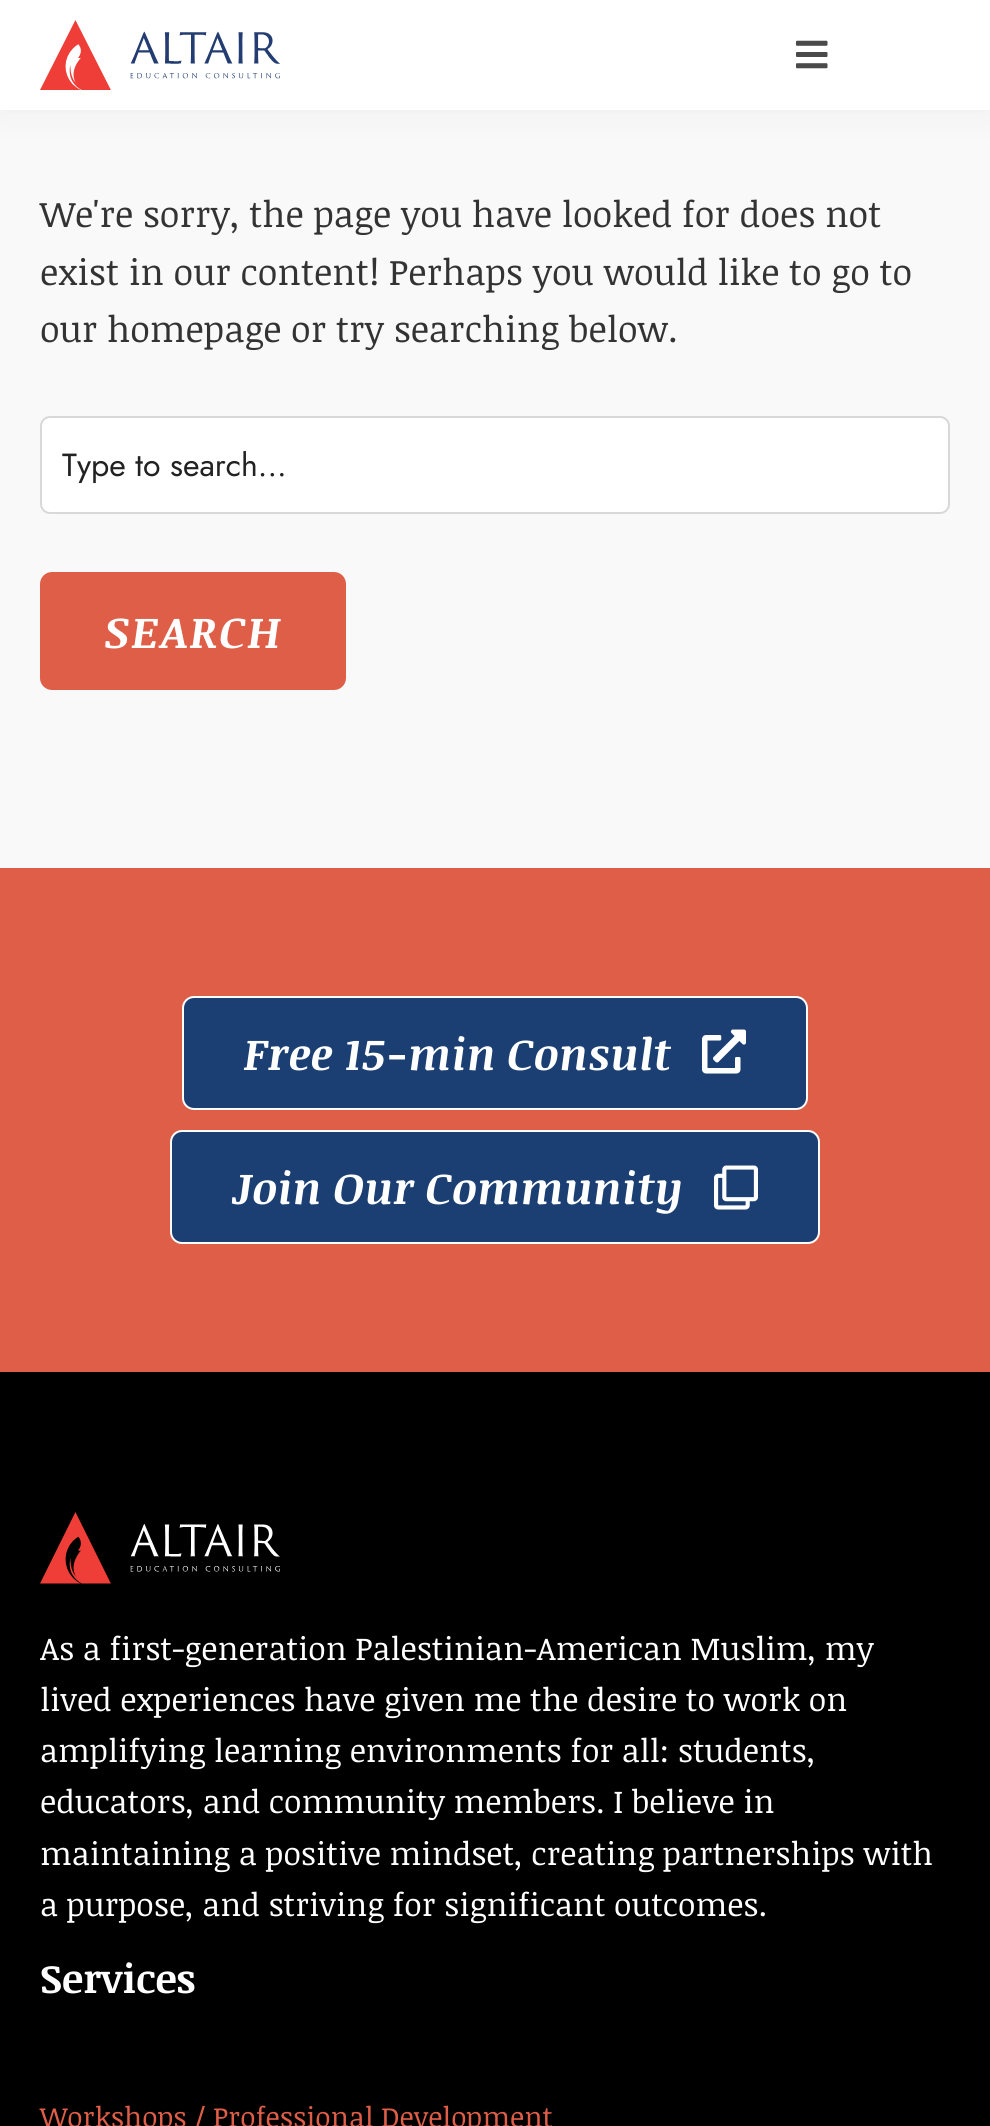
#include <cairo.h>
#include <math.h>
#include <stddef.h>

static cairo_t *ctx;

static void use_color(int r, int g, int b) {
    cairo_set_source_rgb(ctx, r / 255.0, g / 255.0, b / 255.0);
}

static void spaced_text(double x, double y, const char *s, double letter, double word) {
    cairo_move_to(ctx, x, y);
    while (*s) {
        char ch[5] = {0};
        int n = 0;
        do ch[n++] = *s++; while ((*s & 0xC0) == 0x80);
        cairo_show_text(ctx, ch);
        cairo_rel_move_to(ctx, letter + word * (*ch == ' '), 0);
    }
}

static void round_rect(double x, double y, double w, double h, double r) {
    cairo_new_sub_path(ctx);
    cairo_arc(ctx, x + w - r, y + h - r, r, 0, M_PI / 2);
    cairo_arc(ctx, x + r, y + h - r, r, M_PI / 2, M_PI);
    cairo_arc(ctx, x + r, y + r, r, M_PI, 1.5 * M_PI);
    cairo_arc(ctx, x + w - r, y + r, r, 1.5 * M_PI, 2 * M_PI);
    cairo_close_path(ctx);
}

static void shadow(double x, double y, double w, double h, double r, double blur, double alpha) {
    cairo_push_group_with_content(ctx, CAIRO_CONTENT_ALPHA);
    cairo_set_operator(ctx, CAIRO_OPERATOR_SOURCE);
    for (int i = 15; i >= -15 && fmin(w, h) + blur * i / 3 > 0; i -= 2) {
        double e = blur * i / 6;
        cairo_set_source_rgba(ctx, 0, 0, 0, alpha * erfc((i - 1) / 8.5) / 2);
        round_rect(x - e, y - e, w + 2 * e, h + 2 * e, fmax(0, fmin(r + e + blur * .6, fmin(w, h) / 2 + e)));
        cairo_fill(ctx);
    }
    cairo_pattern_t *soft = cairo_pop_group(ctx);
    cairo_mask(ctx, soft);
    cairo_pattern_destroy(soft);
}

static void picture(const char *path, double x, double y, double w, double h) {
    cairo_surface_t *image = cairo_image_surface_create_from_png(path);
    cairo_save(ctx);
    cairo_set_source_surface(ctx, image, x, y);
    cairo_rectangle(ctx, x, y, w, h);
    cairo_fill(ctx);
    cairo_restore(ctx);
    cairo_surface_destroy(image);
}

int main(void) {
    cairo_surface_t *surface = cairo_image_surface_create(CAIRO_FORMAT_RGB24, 990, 2126);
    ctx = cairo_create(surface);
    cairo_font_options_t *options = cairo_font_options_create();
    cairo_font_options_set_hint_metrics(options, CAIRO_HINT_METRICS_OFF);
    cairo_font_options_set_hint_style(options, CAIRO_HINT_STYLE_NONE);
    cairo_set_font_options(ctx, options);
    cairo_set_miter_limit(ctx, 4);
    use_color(249, 249, 249);
    cairo_paint(ctx);
    use_color(0, 0, 0);
    shadow(0, 0, 990, 110, 0, 20, 0.05);
    use_color(255, 255, 255);
    cairo_rectangle(ctx, 0, 0, 990, 110);
    cairo_fill(ctx);
    picture("img1.png", 40, 20, 240, 70);
    picture("img2.png", 796, 40, 32, 29);
    cairo_select_font_face(ctx, "Noticia Text", CAIRO_FONT_SLANT_NORMAL, CAIRO_FONT_WEIGHT_NORMAL);
    cairo_set_font_size(ctx, 36);
    use_color(51, 51, 51);
    cairo_move_to(ctx, 40, 227);
    cairo_show_text(ctx, "We're sorry, the page you have looked for does not");
    cairo_move_to(ctx, 40, 285);
    cairo_show_text(ctx, "exist in our content! Perhaps you would like to go to");
    cairo_move_to(ctx, 40, 342);
    cairo_show_text(ctx, "our homepage or try searching below.");
    use_color(255, 255, 255);
    round_rect(41, 417, 908, 96, 9);
    cairo_fill_preserve(ctx);
    use_color(216, 216, 216);
    cairo_stroke(ctx);
    cairo_select_font_face(ctx, "Jost", CAIRO_FONT_SLANT_NORMAL, CAIRO_FONT_WEIGHT_NORMAL);
    cairo_set_font_size(ctx, 32);
    use_color(34, 34, 34);
    cairo_move_to(ctx, 62, 476);
    cairo_show_text(ctx, "Type to search...");
    use_color(222, 94, 71);
    round_rect(42, 574, 302, 114, 10);
    cairo_fill_preserve(ctx);
    cairo_set_line_width(ctx, 4);
    cairo_stroke(ctx);
    cairo_select_font_face(ctx, "Noticia Text", CAIRO_FONT_SLANT_ITALIC, CAIRO_FONT_WEIGHT_BOLD);
    cairo_set_font_size(ctx, 44);
    use_color(255, 255, 255);
    spaced_text(104, 648, "SEARCH", 2, 0);
    use_color(222, 94, 71);
    cairo_rectangle(ctx, 0, 868, 990, 504);
    cairo_fill(ctx);
    use_color(27, 63, 115);
    round_rect(183, 997, 624, 112, 11);
    cairo_fill_preserve(ctx);
    use_color(255, 255, 255);
    cairo_set_line_width(ctx, 2);
    cairo_stroke(ctx);
    cairo_move_to(ctx, 244, 1070);
    cairo_show_text(ctx, "Free 15-min Consult");
    picture("img3.png", 702, 1029, 44, 45);
    use_color(27, 63, 115);
    round_rect(171, 1131, 648, 112, 11);
    cairo_fill_preserve(ctx);
    use_color(255, 255, 255);
    cairo_stroke(ctx);
    cairo_move_to(ctx, 232, 1204);
    cairo_show_text(ctx, "Join Our Community");
    picture("img4.png", 714, 1165, 44, 45);
    use_color(0, 0, 0);
    cairo_rectangle(ctx, 0, 1372, 990, 754);
    cairo_fill(ctx);
    picture("img5.png", 40, 1512, 240, 72);
    cairo_select_font_face(ctx, "Noticia Text", CAIRO_FONT_SLANT_NORMAL, CAIRO_FONT_WEIGHT_NORMAL);
    cairo_set_font_size(ctx, 32);
    use_color(255, 255, 255);
    cairo_move_to(ctx, 40, 1660);
    cairo_show_text(ctx, "As a first-generation Palestinian-American Muslim, my");
    cairo_move_to(ctx, 40, 1711);
    cairo_show_text(ctx, "lived experiences have given me the desire to work on");
    cairo_move_to(ctx, 40, 1762);
    cairo_show_text(ctx, "amplifying learning environments for all: students,");
    cairo_move_to(ctx, 40, 1813);
    cairo_show_text(ctx, "educators, and community members. I believe in");
    cairo_move_to(ctx, 40, 1865);
    cairo_show_text(ctx, "maintaining a positive mindset, creating partnerships with");
    cairo_move_to(ctx, 40, 1916);
    cairo_show_text(ctx, "a purpose, and striving for significant outcomes.");
    cairo_select_font_face(ctx, "Noticia Text", CAIRO_FONT_SLANT_NORMAL, CAIRO_FONT_WEIGHT_BOLD);
    cairo_set_font_size(ctx, 40);
    cairo_move_to(ctx, 40, 1993);
    cairo_show_text(ctx, "Services");
    cairo_select_font_face(ctx, "Noticia Text", CAIRO_FONT_SLANT_NORMAL, CAIRO_FONT_WEIGHT_NORMAL);
    cairo_set_font_size(ctx, 28);
    use_color(222, 94, 71);
    cairo_move_to(ctx, 40, 2127);
    cairo_show_text(ctx, "Workshops / Professional Development");
    cairo_surface_write_to_png(surface, "result.png");
    cairo_font_options_destroy(options);
    cairo_destroy(ctx);
    cairo_surface_destroy(surface);
    return 0;
}
